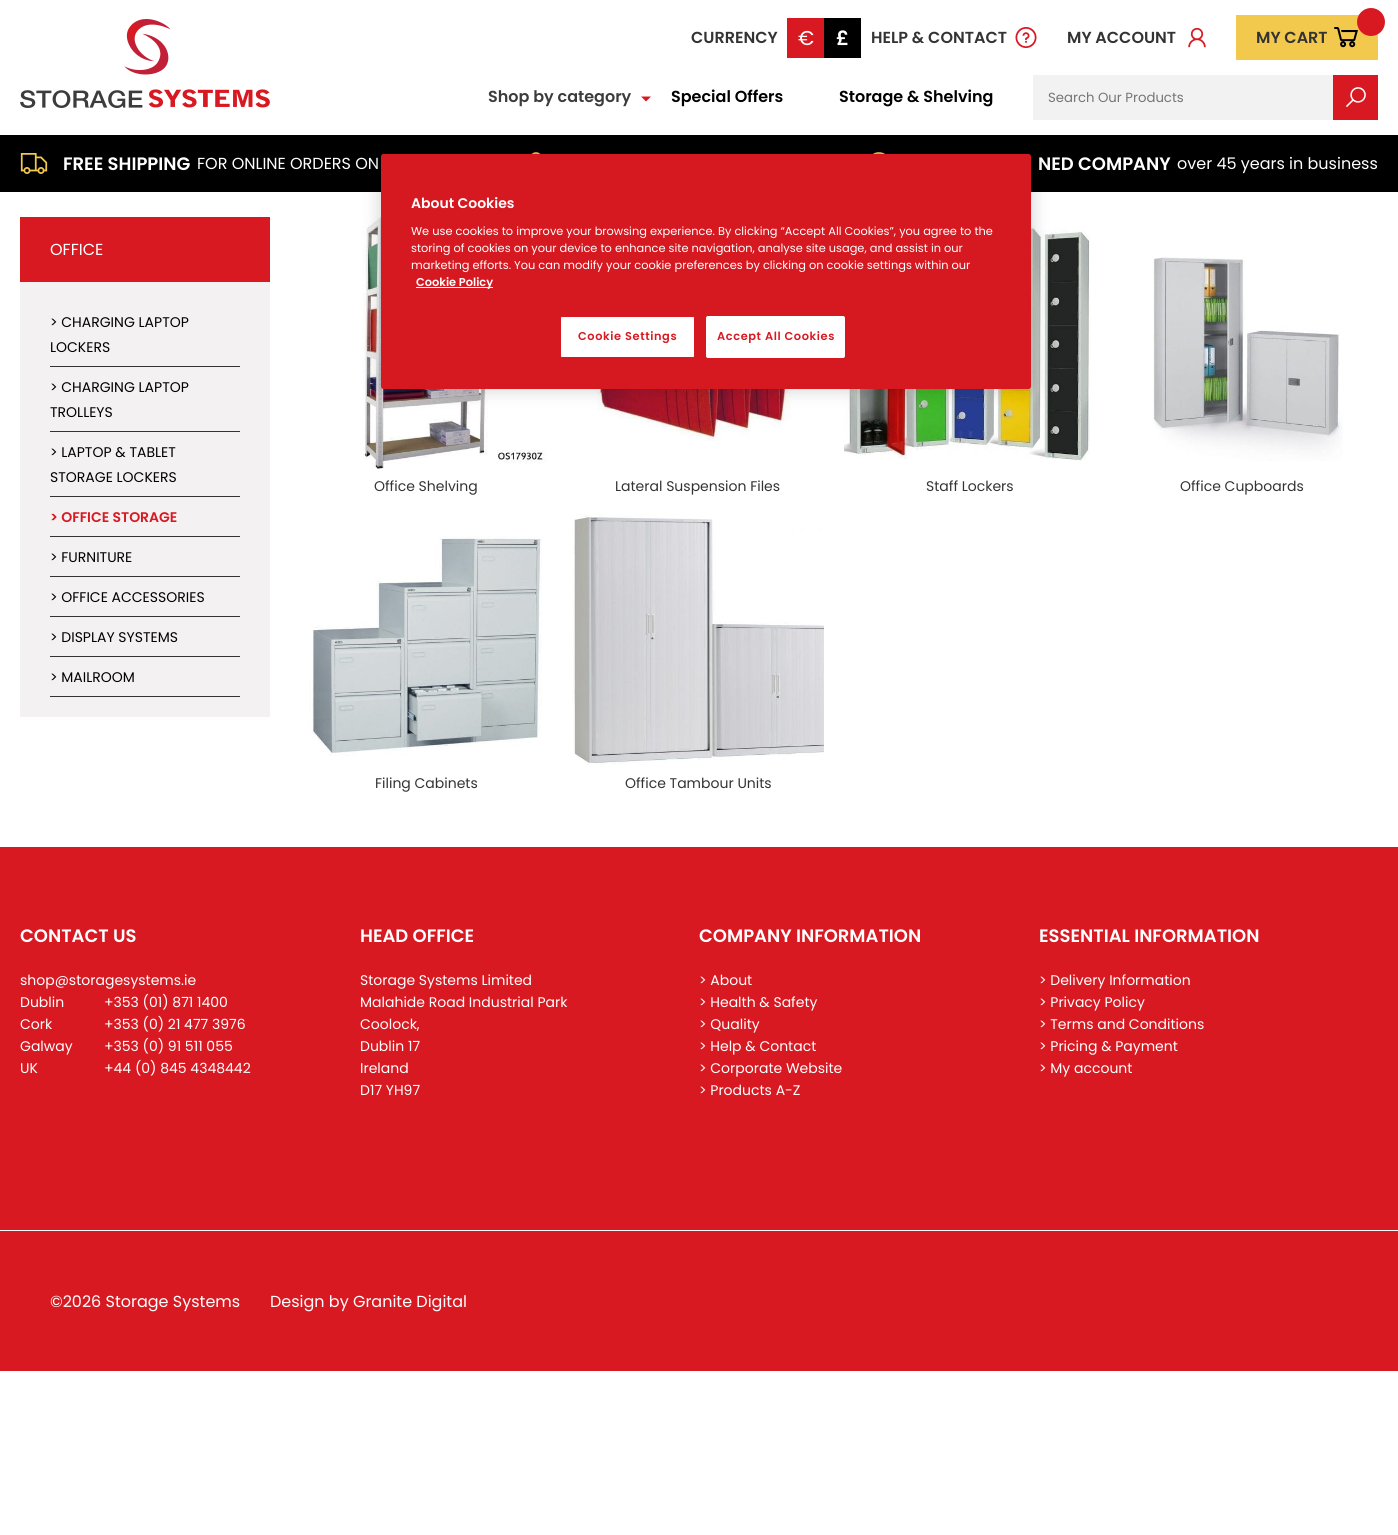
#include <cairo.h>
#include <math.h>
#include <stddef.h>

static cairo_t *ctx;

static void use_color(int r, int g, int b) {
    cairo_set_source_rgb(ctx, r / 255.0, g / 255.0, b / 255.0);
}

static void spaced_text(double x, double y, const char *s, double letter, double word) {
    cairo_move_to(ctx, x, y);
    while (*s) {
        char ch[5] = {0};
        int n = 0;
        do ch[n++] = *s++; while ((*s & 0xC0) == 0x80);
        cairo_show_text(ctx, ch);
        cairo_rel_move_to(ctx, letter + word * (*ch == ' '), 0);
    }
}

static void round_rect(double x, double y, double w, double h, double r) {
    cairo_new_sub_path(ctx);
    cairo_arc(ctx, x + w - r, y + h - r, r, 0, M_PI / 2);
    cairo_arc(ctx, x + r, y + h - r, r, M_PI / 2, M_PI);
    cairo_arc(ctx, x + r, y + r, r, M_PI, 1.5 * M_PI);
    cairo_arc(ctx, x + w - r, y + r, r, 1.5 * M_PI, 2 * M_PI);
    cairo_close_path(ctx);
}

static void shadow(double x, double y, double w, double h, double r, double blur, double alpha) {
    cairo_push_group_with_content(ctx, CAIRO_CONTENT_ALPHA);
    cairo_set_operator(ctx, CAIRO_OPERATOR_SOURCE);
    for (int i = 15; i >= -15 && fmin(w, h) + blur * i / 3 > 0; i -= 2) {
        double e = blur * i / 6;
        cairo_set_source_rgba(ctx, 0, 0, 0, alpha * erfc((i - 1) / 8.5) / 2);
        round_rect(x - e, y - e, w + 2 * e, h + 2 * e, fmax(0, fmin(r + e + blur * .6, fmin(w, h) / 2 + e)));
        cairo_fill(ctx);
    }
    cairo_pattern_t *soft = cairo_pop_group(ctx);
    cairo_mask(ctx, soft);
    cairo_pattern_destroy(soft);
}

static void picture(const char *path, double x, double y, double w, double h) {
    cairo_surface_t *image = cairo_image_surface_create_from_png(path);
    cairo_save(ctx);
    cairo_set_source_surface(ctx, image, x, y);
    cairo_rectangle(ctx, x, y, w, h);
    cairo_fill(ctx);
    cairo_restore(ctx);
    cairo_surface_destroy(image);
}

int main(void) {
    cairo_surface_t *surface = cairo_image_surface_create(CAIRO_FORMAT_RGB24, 1398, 1535);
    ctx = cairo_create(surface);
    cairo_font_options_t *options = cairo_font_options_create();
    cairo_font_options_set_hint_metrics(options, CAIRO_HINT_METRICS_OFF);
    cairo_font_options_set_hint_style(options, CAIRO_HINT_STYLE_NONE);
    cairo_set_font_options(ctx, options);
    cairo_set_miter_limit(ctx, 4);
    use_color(255, 255, 255);
    cairo_paint(ctx);
    picture("img1.png", 20, 19, 250, 89);
    cairo_select_font_face(ctx, "Poppins SemiBold", CAIRO_FONT_SLANT_NORMAL, CAIRO_FONT_WEIGHT_NORMAL);
    cairo_set_font_size(ctx, 16);
    use_color(51, 51, 51);
    cairo_move_to(ctx, 691, 43);
    cairo_show_text(ctx, "CURRENCY");
    use_color(216, 25, 33);
    cairo_rectangle(ctx, 787, 18, 37, 40);
    cairo_fill(ctx);
    cairo_select_font_face(ctx, "Poppins", CAIRO_FONT_SLANT_NORMAL, CAIRO_FONT_WEIGHT_NORMAL);
    cairo_set_font_size(ctx, 20);
    use_color(255, 255, 255);
    cairo_move_to(ctx, 798, 45);
    cairo_show_text(ctx, "€");
    use_color(0, 0, 0);
    cairo_rectangle(ctx, 824, 18, 37, 40);
    cairo_fill(ctx);
    cairo_select_font_face(ctx, "Poppins SemiBold", CAIRO_FONT_SLANT_NORMAL, CAIRO_FONT_WEIGHT_NORMAL);
    use_color(255, 255, 255);
    cairo_move_to(ctx, 836, 45);
    cairo_show_text(ctx, "£");
    picture("img2.png", 1015, 27, 22, 21);
    cairo_set_font_size(ctx, 16);
    use_color(51, 51, 51);
    cairo_move_to(ctx, 871, 43);
    cairo_show_text(ctx, "HELP & CONTACT");
    picture("img3.png", 1188, 27, 18, 21);
    cairo_move_to(ctx, 1067, 43);
    cairo_show_text(ctx, "MY ACCOUNT");
    use_color(242, 201, 76);
    cairo_rectangle(ctx, 1236, 15, 142, 45);
    cairo_fill(ctx);
    picture("img4.png", 1334, 27, 24, 21);
    use_color(216, 25, 33);
    cairo_arc(ctx, 1371, 22, 14, 0, 2 * M_PI);
    cairo_fill(ctx);
    use_color(51, 51, 51);
    cairo_move_to(ctx, 1256, 43);
    cairo_show_text(ctx, "MY CART");
    use_color(60, 60, 60);
    cairo_move_to(ctx, 488, 102);
    cairo_show_text(ctx, "Shop by category");
    use_color(216, 25, 33);
    cairo_new_path(ctx);
    cairo_move_to(ctx, 641, 96.5);
    cairo_line_to(ctx, 646, 101.5);
    cairo_line_to(ctx, 651, 96.5);
    cairo_close_path(ctx);
    cairo_fill(ctx);
    use_color(0, 0, 0);
    cairo_move_to(ctx, 671, 102);
    cairo_show_text(ctx, "Special Offers");
    cairo_move_to(ctx, 839, 102);
    cairo_show_text(ctx, "Storage & Shelving");
    use_color(242, 242, 242);
    cairo_rectangle(ctx, 1033, 75, 300, 45);
    cairo_fill(ctx);
    cairo_select_font_face(ctx, "Poppins", CAIRO_FONT_SLANT_NORMAL, CAIRO_FONT_WEIGHT_NORMAL);
    cairo_set_font_size(ctx, 13.25);
    use_color(117, 117, 117);
    cairo_move_to(ctx, 1048, 102);
    cairo_show_text(ctx, "Search Our Products");
    use_color(216, 25, 33);
    cairo_rectangle(ctx, 1333, 75, 45, 45);
    cairo_fill(ctx);
    picture("img5.png", 1346, 87, 20, 20);
    use_color(0, 0, 0);
    cairo_rectangle(ctx, 0, 135, 1398, 57);
    cairo_fill(ctx);
    picture("img6.png", 531, 152, 10, 2);
    picture("img7.png", 20, 153, 28, 21);
    cairo_select_font_face(ctx, "Poppins SemiBold", CAIRO_FONT_SLANT_NORMAL, CAIRO_FONT_WEIGHT_NORMAL);
    cairo_set_font_size(ctx, 18);
    use_color(255, 255, 255);
    cairo_move_to(ctx, 63, 170);
    cairo_show_text(ctx, "FREE SHIPPING");
    cairo_select_font_face(ctx, "Poppins", CAIRO_FONT_SLANT_NORMAL, CAIRO_FONT_WEIGHT_NORMAL);
    cairo_set_font_size(ctx, 16);
    cairo_move_to(ctx, 197, 169);
    cairo_show_text(ctx, "FOR ONLINE ORDERS ON");
    picture("img8.png", 873, 152, 12, 2);
    cairo_select_font_face(ctx, "Poppins SemiBold", CAIRO_FONT_SLANT_NORMAL, CAIRO_FONT_WEIGHT_NORMAL);
    cairo_set_font_size(ctx, 18);
    cairo_move_to(ctx, 1038, 170);
    cairo_show_text(ctx, "NED COMPANY");
    cairo_select_font_face(ctx, "Poppins", CAIRO_FONT_SLANT_NORMAL, CAIRO_FONT_WEIGHT_NORMAL);
    cairo_set_font_size(ctx, 16);
    cairo_move_to(ctx, 1177, 169);
    cairo_show_text(ctx, "over 45 years in business");
    picture("img9.png", 363, 217, 184, 252);
    picture("img10.png", 572, 389, 252, 52);
    picture("img11.png", 844, 221, 247, 240);
    use_color(0, 0, 0);
    shadow(381, 154, 650, 235, 2.5, 9, 0.2);
    use_color(214, 25, 32);
    round_rect(381, 154, 650, 235, 2.5);
    cairo_fill(ctx);
    cairo_select_font_face(ctx, "Poppins SemiBold", CAIRO_FONT_SLANT_NORMAL, CAIRO_FONT_WEIGHT_NORMAL);
    cairo_set_font_size(ctx, 14);
    use_color(255, 255, 255);
    cairo_move_to(ctx, 411, 208);
    cairo_show_text(ctx, "About Cookies");
    cairo_select_font_face(ctx, "Poppins", CAIRO_FONT_SLANT_NORMAL, CAIRO_FONT_WEIGHT_NORMAL);
    cairo_set_font_size(ctx, 11.38);
    cairo_move_to(ctx, 411, 235);
    cairo_show_text(ctx, "We use cookies to improve your browsing experience. By clicking “Accept All Cookies”, you agree to the");
    cairo_move_to(ctx, 411, 252);
    cairo_show_text(ctx, "storing of cookies on your device to enhance site navigation, analyse site usage, and assist in our");
    cairo_move_to(ctx, 411, 269);
    cairo_show_text(ctx, "marketing efforts. You can modify your cookie preferences by clicking on cookie settings within our");
    cairo_rectangle(ctx, 416, 287, 77, 1);
    cairo_fill(ctx);
    cairo_select_font_face(ctx, "Poppins SemiBold", CAIRO_FONT_SLANT_NORMAL, CAIRO_FONT_WEIGHT_NORMAL);
    cairo_move_to(ctx, 416, 286);
    cairo_show_text(ctx, "Cookie Policy");
    round_rect(560.5, 316.5, 134, 41, 1.5);
    cairo_fill_preserve(ctx);
    use_color(214, 25, 32);
    cairo_set_line_width(ctx, 1);
    cairo_stroke(ctx);
    use_color(216, 25, 33);
    spaced_text(578, 340, "Cookie Settings", 0.6, 0);
    use_color(255, 255, 255);
    round_rect(706.5, 316.5, 138, 41, 1.5);
    cairo_fill_preserve(ctx);
    cairo_stroke(ctx);
    use_color(216, 25, 33);
    spaced_text(717, 340, "Accept All Cookies", 0.6, 0);
    use_color(243, 241, 242);
    cairo_rectangle(ctx, 20, 282, 250, 435);
    cairo_fill(ctx);
    use_color(216, 25, 33);
    cairo_rectangle(ctx, 20, 217, 250, 65);
    cairo_fill(ctx);
    cairo_select_font_face(ctx, "Poppins", CAIRO_FONT_SLANT_NORMAL, CAIRO_FONT_WEIGHT_NORMAL);
    cairo_set_font_size(ctx, 16);
    use_color(255, 255, 255);
    cairo_move_to(ctx, 50, 255);
    cairo_show_text(ctx, "OFFICE");
    use_color(51, 51, 51);
    cairo_rectangle(ctx, 50, 366, 190, 1);
    cairo_fill(ctx);
    cairo_set_font_size(ctx, 14);
    use_color(0, 0, 0);
    cairo_move_to(ctx, 50, 327);
    cairo_show_text(ctx, "> CHARGING LAPTOP");
    cairo_move_to(ctx, 50, 352);
    cairo_show_text(ctx, "LOCKERS");
    use_color(51, 51, 51);
    cairo_rectangle(ctx, 50, 431, 190, 1);
    cairo_fill(ctx);
    use_color(0, 0, 0);
    cairo_move_to(ctx, 50, 392);
    cairo_show_text(ctx, "> CHARGING LAPTOP");
    cairo_move_to(ctx, 50, 417);
    cairo_show_text(ctx, "TROLLEYS");
    use_color(51, 51, 51);
    cairo_rectangle(ctx, 50, 496, 190, 1);
    cairo_fill(ctx);
    use_color(0, 0, 0);
    cairo_move_to(ctx, 50, 457);
    cairo_show_text(ctx, "> LAPTOP & TABLET");
    cairo_move_to(ctx, 50, 482);
    cairo_show_text(ctx, "STORAGE LOCKERS");
    use_color(51, 51, 51);
    cairo_rectangle(ctx, 50, 536, 190, 1);
    cairo_fill(ctx);
    cairo_select_font_face(ctx, "Poppins SemiBold", CAIRO_FONT_SLANT_NORMAL, CAIRO_FONT_WEIGHT_NORMAL);
    use_color(216, 25, 33);
    cairo_move_to(ctx, 50, 522);
    cairo_show_text(ctx, "> OFFICE STORAGE");
    use_color(51, 51, 51);
    cairo_rectangle(ctx, 50, 576, 190, 1);
    cairo_fill(ctx);
    cairo_select_font_face(ctx, "Poppins", CAIRO_FONT_SLANT_NORMAL, CAIRO_FONT_WEIGHT_NORMAL);
    use_color(0, 0, 0);
    cairo_move_to(ctx, 50, 562);
    cairo_show_text(ctx, "> FURNITURE");
    use_color(51, 51, 51);
    cairo_rectangle(ctx, 50, 616, 190, 1);
    cairo_fill(ctx);
    use_color(0, 0, 0);
    cairo_move_to(ctx, 50, 602);
    cairo_show_text(ctx, "> OFFICE ACCESSORIES");
    use_color(51, 51, 51);
    cairo_rectangle(ctx, 50, 656, 190, 1);
    cairo_fill(ctx);
    use_color(0, 0, 0);
    cairo_move_to(ctx, 50, 642);
    cairo_show_text(ctx, "> DISPLAY SYSTEMS");
    use_color(51, 51, 51);
    cairo_rectangle(ctx, 50, 696, 190, 1);
    cairo_fill(ctx);
    use_color(0, 0, 0);
    cairo_move_to(ctx, 50, 682);
    cairo_show_text(ctx, "> MAILROOM");
    use_color(51, 51, 51);
    cairo_move_to(ctx, 374, 491);
    cairo_show_text(ctx, "Office Shelving");
    cairo_move_to(ctx, 615, 491);
    cairo_show_text(ctx, "Lateral Suspension Files");
    cairo_move_to(ctx, 926, 491);
    cairo_show_text(ctx, "Staff Lockers");
    picture("img12.png", 1153, 257, 190, 204);
    cairo_move_to(ctx, 1180, 491);
    cairo_show_text(ctx, "Office Cupboards");
    picture("img13.png", 309, 536, 233, 220);
    cairo_move_to(ctx, 375, 788);
    cairo_show_text(ctx, "Filing Cabinets");
    picture("img14.png", 572, 514, 252, 251);
    cairo_move_to(ctx, 625, 788);
    cairo_show_text(ctx, "Office Tambour Units");
    use_color(216, 25, 33);
    cairo_rectangle(ctx, 0, 847, 1398, 524);
    cairo_fill(ctx);
    cairo_select_font_face(ctx, "Poppins SemiBold", CAIRO_FONT_SLANT_NORMAL, CAIRO_FONT_WEIGHT_NORMAL);
    cairo_set_font_size(ctx, 18);
    use_color(255, 255, 255);
    cairo_move_to(ctx, 20, 942);
    cairo_show_text(ctx, "CONTACT US");
    cairo_select_font_face(ctx, "Poppins", CAIRO_FONT_SLANT_NORMAL, CAIRO_FONT_WEIGHT_NORMAL);
    cairo_set_font_size(ctx, 14);
    cairo_move_to(ctx, 20, 985);
    cairo_show_text(ctx, "shop@storagesystems.ie");
    cairo_move_to(ctx, 20, 1007);
    cairo_show_text(ctx, "Dublin");
    cairo_move_to(ctx, 104, 1007);
    cairo_show_text(ctx, "+353 (01) 871 1400");
    cairo_move_to(ctx, 20, 1029);
    cairo_show_text(ctx, "Cork");
    cairo_move_to(ctx, 104, 1029);
    cairo_show_text(ctx, "+353 (0) 21 477 3976");
    cairo_move_to(ctx, 20, 1051);
    cairo_show_text(ctx, "Galway");
    cairo_move_to(ctx, 104, 1051);
    cairo_show_text(ctx, "+353 (0) 91 511 055");
    cairo_move_to(ctx, 20, 1073);
    cairo_show_text(ctx, "UK");
    cairo_move_to(ctx, 104, 1073);
    cairo_show_text(ctx, "+44 (0) 845 4348442");
    cairo_select_font_face(ctx, "Poppins SemiBold", CAIRO_FONT_SLANT_NORMAL, CAIRO_FONT_WEIGHT_NORMAL);
    cairo_set_font_size(ctx, 18);
    cairo_move_to(ctx, 360, 942);
    cairo_show_text(ctx, "HEAD OFFICE");
    cairo_select_font_face(ctx, "Poppins", CAIRO_FONT_SLANT_NORMAL, CAIRO_FONT_WEIGHT_NORMAL);
    cairo_set_font_size(ctx, 14);
    cairo_move_to(ctx, 360, 985);
    cairo_show_text(ctx, "Storage Systems Limited");
    cairo_move_to(ctx, 360, 1007);
    cairo_show_text(ctx, "Malahide Road Industrial Park");
    cairo_move_to(ctx, 360, 1029);
    cairo_show_text(ctx, "Coolock,");
    cairo_move_to(ctx, 360, 1051);
    cairo_show_text(ctx, "Dublin 17");
    cairo_move_to(ctx, 360, 1073);
    cairo_show_text(ctx, "Ireland");
    cairo_move_to(ctx, 360, 1095);
    cairo_show_text(ctx, "D17 YH97");
    cairo_select_font_face(ctx, "Poppins SemiBold", CAIRO_FONT_SLANT_NORMAL, CAIRO_FONT_WEIGHT_NORMAL);
    cairo_set_font_size(ctx, 18);
    cairo_move_to(ctx, 699, 942);
    cairo_show_text(ctx, "COMPANY INFORMATION");
    cairo_select_font_face(ctx, "Poppins", CAIRO_FONT_SLANT_NORMAL, CAIRO_FONT_WEIGHT_NORMAL);
    cairo_set_font_size(ctx, 14);
    cairo_move_to(ctx, 699, 985);
    cairo_show_text(ctx, "> About");
    cairo_move_to(ctx, 699, 1007);
    cairo_show_text(ctx, "> Health & Safety");
    cairo_move_to(ctx, 699, 1029);
    cairo_show_text(ctx, "> Quality");
    cairo_move_to(ctx, 699, 1051);
    cairo_show_text(ctx, "> Help & Contact");
    cairo_move_to(ctx, 699, 1073);
    cairo_show_text(ctx, "> Corporate Website");
    cairo_move_to(ctx, 699, 1095);
    cairo_show_text(ctx, "> Products A-Z");
    cairo_select_font_face(ctx, "Poppins SemiBold", CAIRO_FONT_SLANT_NORMAL, CAIRO_FONT_WEIGHT_NORMAL);
    cairo_set_font_size(ctx, 18);
    cairo_move_to(ctx, 1039, 942);
    cairo_show_text(ctx, "ESSENTIAL INFORMATION");
    cairo_select_font_face(ctx, "Poppins", CAIRO_FONT_SLANT_NORMAL, CAIRO_FONT_WEIGHT_NORMAL);
    cairo_set_font_size(ctx, 14);
    cairo_move_to(ctx, 1039, 985);
    cairo_show_text(ctx, "> Delivery Information");
    cairo_move_to(ctx, 1039, 1007);
    cairo_show_text(ctx, "> Privacy Policy");
    cairo_move_to(ctx, 1039, 1029);
    cairo_show_text(ctx, "> Terms and Conditions");
    cairo_move_to(ctx, 1039, 1051);
    cairo_show_text(ctx, "> Pricing & Payment");
    cairo_move_to(ctx, 1039, 1073);
    cairo_show_text(ctx, "> My account");
    cairo_rectangle(ctx, 0, 1230, 1398, 1);
    cairo_fill(ctx);
    cairo_set_font_size(ctx, 16);
    cairo_move_to(ctx, 50, 1307);
    cairo_show_text(ctx, "©2026 Storage Systems");
    cairo_move_to(ctx, 270, 1307);
    cairo_show_text(ctx, "Design by Granite Digital");
    cairo_surface_write_to_png(surface, "result.png");
    cairo_font_options_destroy(options);
    cairo_destroy(ctx);
    cairo_surface_destroy(surface);
    return 0;
}
